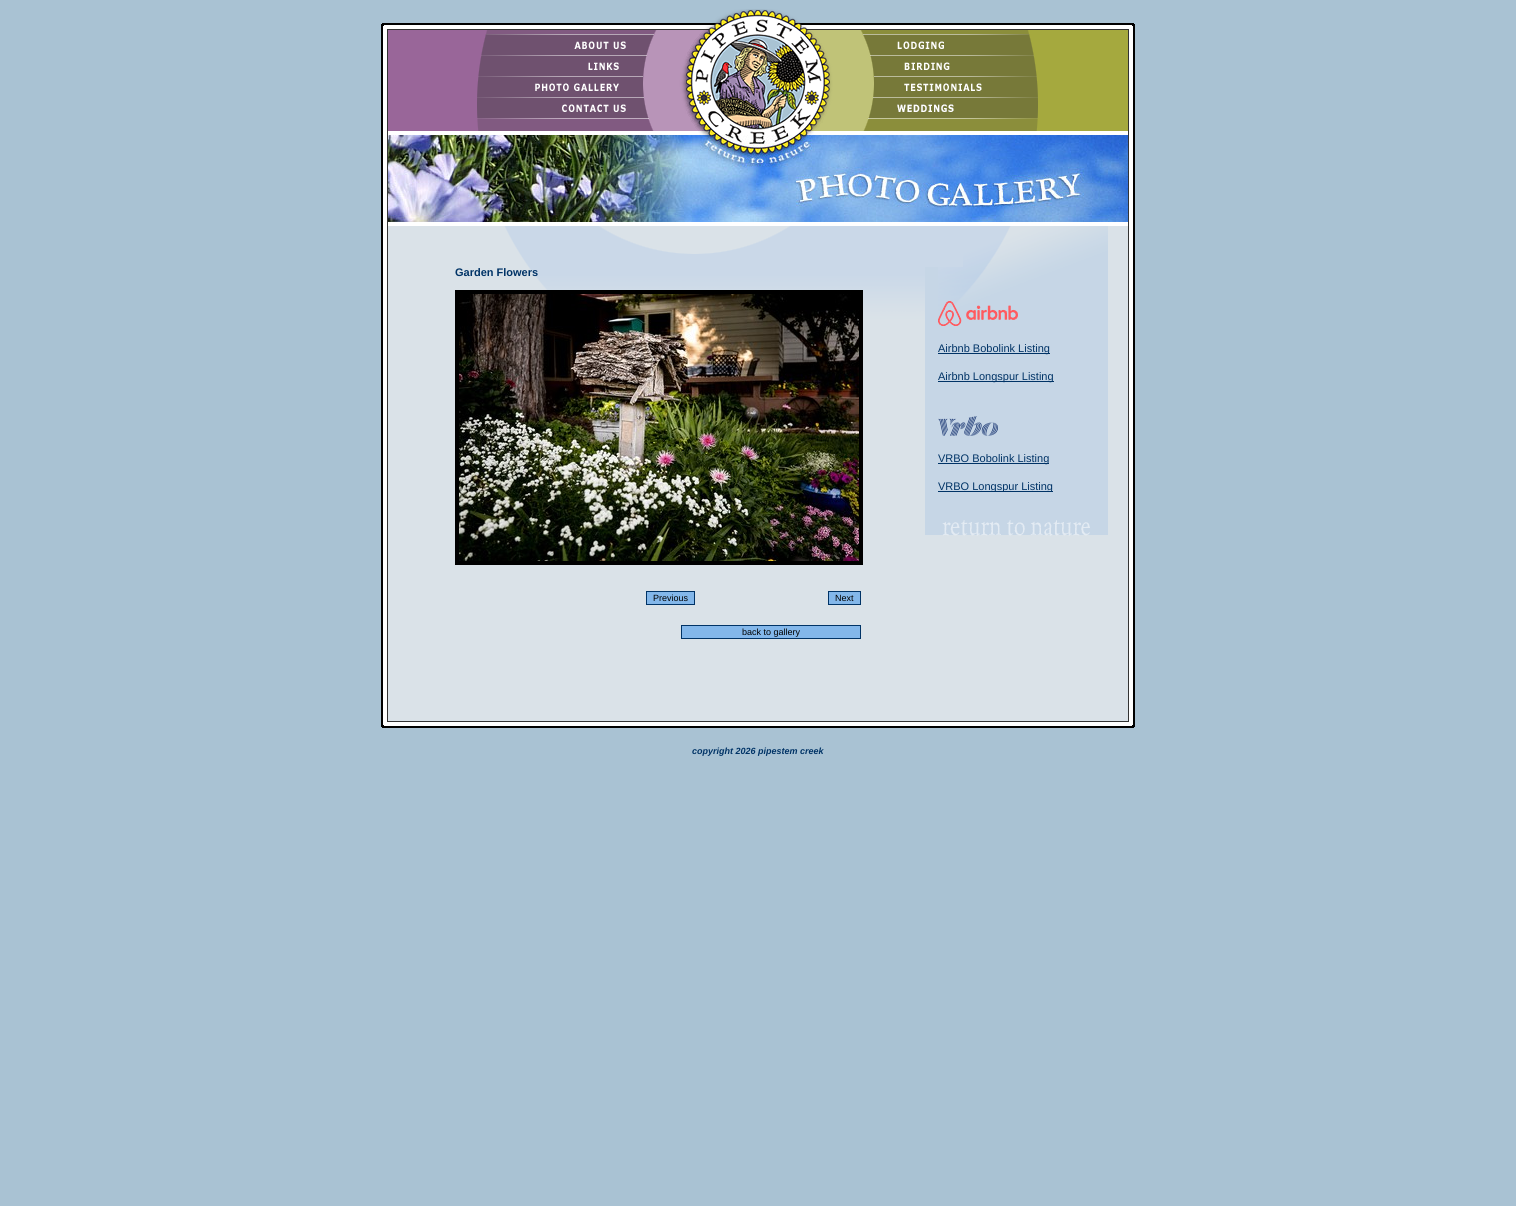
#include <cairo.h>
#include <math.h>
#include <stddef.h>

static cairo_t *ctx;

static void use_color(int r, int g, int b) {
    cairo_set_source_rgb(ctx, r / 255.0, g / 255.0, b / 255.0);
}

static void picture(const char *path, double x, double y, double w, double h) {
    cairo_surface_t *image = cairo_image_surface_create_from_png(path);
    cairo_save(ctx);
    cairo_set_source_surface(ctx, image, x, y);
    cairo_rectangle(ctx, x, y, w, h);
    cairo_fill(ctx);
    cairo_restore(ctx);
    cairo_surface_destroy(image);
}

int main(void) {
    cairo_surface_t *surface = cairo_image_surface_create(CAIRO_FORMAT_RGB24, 1516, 1206);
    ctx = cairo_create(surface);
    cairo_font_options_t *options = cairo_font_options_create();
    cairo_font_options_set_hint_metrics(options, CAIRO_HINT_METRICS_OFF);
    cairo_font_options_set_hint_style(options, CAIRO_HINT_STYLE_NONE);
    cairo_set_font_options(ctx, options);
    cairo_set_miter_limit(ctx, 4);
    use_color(169, 194, 211);
    cairo_paint(ctx);
    picture("img1.png", 381, 23, 322, 7);
    picture("img2.png", 703, 9, 110, 21);
    picture("img3.png", 813, 23, 322, 7);
    picture("img4.png", 381, 30, 96, 105);
    picture("img5.png", 477, 30, 180, 5);
    picture("img6.png", 657, 30, 29, 105);
    picture("img7.png", 686, 30, 144, 105);
    picture("img8.png", 830, 30, 30, 105);
    picture("img9.png", 860, 30, 178, 5);
    picture("img10.png", 1038, 30, 97, 105);
    picture("img11.png", 477, 35, 180, 21);
    picture("img12.png", 860, 35, 178, 21);
    picture("img13.png", 477, 56, 180, 21);
    picture("img14.png", 860, 56, 178, 21);
    picture("img15.png", 477, 77, 180, 21);
    picture("img16.png", 860, 77, 178, 21);
    picture("img17.png", 477, 98, 180, 21);
    picture("img18.png", 860, 98, 178, 21);
    picture("img19.png", 477, 119, 180, 16);
    picture("img20.png", 860, 119, 178, 16);
    picture("img21.png", 381, 135, 7, 87);
    picture("img22.png", 388, 135, 312, 87);
    picture("img23.png", 700, 135, 115, 32);
    picture("img24.png", 815, 135, 313, 32);
    picture("img25.png", 1128, 135, 7, 87);
    picture("img26.png", 700, 167, 428, 55);
    picture("img27.png", 381, 222, 754, 4);
    picture("img28.png", 381, 226, 754, 495);
    cairo_select_font_face(ctx, "Liberation Sans", CAIRO_FONT_SLANT_NORMAL, CAIRO_FONT_WEIGHT_BOLD);
    cairo_set_font_size(ctx, 11);
    use_color(0, 51, 102);
    cairo_move_to(ctx, 455, 276);
    cairo_show_text(ctx, "Garden Flowers");
    cairo_rectangle(ctx, 455.5, 290.5, 407, 274);
    use_color(0, 0, 0);
    cairo_set_line_width(ctx, 1);
    cairo_stroke(ctx);
    cairo_rectangle(ctx, 456, 291, 406, 2);
    cairo_fill(ctx);
    cairo_rectangle(ctx, 456, 293, 2, 271);
    cairo_fill(ctx);
    cairo_rectangle(ctx, 458.5, 293.5, 401, 268);
    cairo_stroke(ctx);
    picture("img29.png", 459, 294, 400, 267);
    cairo_rectangle(ctx, 860, 293, 2, 269);
    cairo_fill(ctx);
    cairo_rectangle(ctx, 458, 562, 404, 2);
    cairo_fill(ctx);
    use_color(131, 183, 234);
    cairo_rectangle(ctx, 646.5, 591.5, 48, 13);
    cairo_fill_preserve(ctx);
    use_color(0, 51, 102);
    cairo_stroke(ctx);
    cairo_select_font_face(ctx, "Liberation Sans", CAIRO_FONT_SLANT_NORMAL, CAIRO_FONT_WEIGHT_NORMAL);
    cairo_set_font_size(ctx, 9);
    use_color(0, 0, 0);
    cairo_move_to(ctx, 653, 601);
    cairo_show_text(ctx, "Previous");
    use_color(131, 183, 234);
    cairo_rectangle(ctx, 828.5, 591.5, 32, 13);
    cairo_fill_preserve(ctx);
    use_color(0, 51, 102);
    cairo_stroke(ctx);
    use_color(0, 0, 0);
    cairo_move_to(ctx, 835, 601);
    cairo_show_text(ctx, "Next");
    use_color(131, 183, 234);
    cairo_rectangle(ctx, 681.5, 625.5, 179, 13);
    cairo_fill_preserve(ctx);
    use_color(0, 51, 102);
    cairo_stroke(ctx);
    use_color(0, 0, 0);
    cairo_move_to(ctx, 742, 635);
    cairo_show_text(ctx, "back to gallery");
    picture("img30.png", 963, 226, 145, 41);
    use_color(198, 214, 230);
    cairo_rectangle(ctx, 925, 267, 13, 225);
    cairo_fill(ctx);
    picture("img31.png", 938, 267, 157, 225);
    picture("img32.png", 938, 301, 80, 25);
    use_color(0, 51, 102);
    cairo_rectangle(ctx, 938, 353, 112, 1);
    cairo_fill(ctx);
    cairo_set_font_size(ctx, 11);
    cairo_move_to(ctx, 938, 352);
    cairo_show_text(ctx, "Airbnb Bobolink Listing");
    cairo_rectangle(ctx, 938, 381, 116, 1);
    cairo_fill(ctx);
    cairo_move_to(ctx, 938, 380);
    cairo_show_text(ctx, "Airbnb Longspur Listing");
    picture("img33.png", 938, 416, 60, 20);
    cairo_rectangle(ctx, 938, 463, 111, 1);
    cairo_fill(ctx);
    cairo_move_to(ctx, 938, 462);
    cairo_show_text(ctx, "VRBO Bobolink Listing");
    cairo_rectangle(ctx, 938, 491, 115, 1);
    cairo_fill(ctx);
    cairo_move_to(ctx, 938, 490);
    cairo_show_text(ctx, "VRBO Longspur Listing");
    use_color(198, 214, 230);
    cairo_rectangle(ctx, 1095, 267, 13, 225);
    cairo_fill(ctx);
    picture("img34.png", 925, 492, 183, 44);
    picture("img35.png", 381, 721, 754, 7);
    cairo_select_font_face(ctx, "Liberation Sans", CAIRO_FONT_SLANT_ITALIC, CAIRO_FONT_WEIGHT_BOLD);
    cairo_set_font_size(ctx, 9);
    use_color(0, 51, 102);
    cairo_move_to(ctx, 692, 754);
    cairo_show_text(ctx, "copyright 2026 pipestem creek");
    cairo_surface_write_to_png(surface, "result.png");
    cairo_font_options_destroy(options);
    cairo_destroy(ctx);
    cairo_surface_destroy(surface);
    return 0;
}
